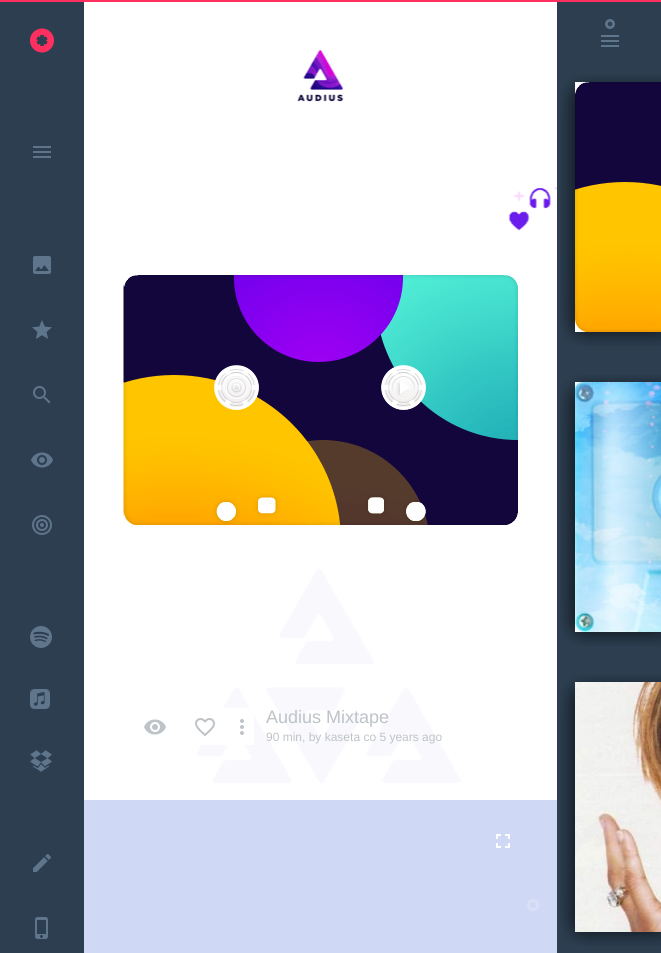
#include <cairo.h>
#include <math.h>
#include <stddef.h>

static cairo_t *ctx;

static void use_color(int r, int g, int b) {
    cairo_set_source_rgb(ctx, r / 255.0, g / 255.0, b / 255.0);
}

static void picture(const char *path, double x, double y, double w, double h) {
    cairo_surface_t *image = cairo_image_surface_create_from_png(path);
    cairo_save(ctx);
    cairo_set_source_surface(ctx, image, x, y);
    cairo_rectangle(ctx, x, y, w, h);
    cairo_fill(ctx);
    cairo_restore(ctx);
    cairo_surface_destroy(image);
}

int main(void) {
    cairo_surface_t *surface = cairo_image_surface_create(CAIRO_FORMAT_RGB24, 661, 953);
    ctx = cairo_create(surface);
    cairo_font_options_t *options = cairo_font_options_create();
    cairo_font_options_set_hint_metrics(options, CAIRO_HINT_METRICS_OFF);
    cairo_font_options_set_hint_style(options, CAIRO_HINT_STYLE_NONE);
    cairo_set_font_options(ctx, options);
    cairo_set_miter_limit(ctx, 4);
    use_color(44, 62, 80);
    cairo_paint(ctx);
    use_color(255, 48, 95);
    cairo_rectangle(ctx, 0, 0, 661, 2);
    cairo_fill(ctx);
    picture("img1.png", 30, 28, 24, 25);
    picture("img2.png", 33, 146, 18, 12);
    picture("img3.png", 33, 256, 18, 18);
    picture("img4.png", 32, 320, 20, 19);
    picture("img5.png", 33, 386, 18, 18);
    picture("img6.png", 31, 452, 22, 16);
    picture("img7.png", 32, 515, 20, 20);
    picture("img8.png", 30, 626, 22, 22);
    picture("img9.png", 30, 689, 20, 20);
    picture("img10.png", 30, 750, 22, 22);
    picture("img11.png", 33, 854, 18, 18);
    picture("img12.png", 35, 917, 13, 22);
    use_color(255, 255, 255);
    cairo_rectangle(ctx, 84, 2, 473, 798);
    cairo_fill(ctx);
    picture("img13.png", 123, 50, 434, 733);
    picture("img14.png", 124, 275, 394, 250);
    picture("img16.png", 214, 366, 45, 44);
    picture("img15.png", 214, 365, 45, 45);
    picture("img18.png", 381, 366, 45, 44);
    picture("img17.png", 381, 365, 45, 45);
    cairo_rectangle(ctx, 201, 709, 53, 36);
    cairo_fill(ctx);
    picture("img19.png", 144, 719, 22, 16);
    cairo_rectangle(ctx, 223, 708, 28, 1);
    cairo_fill(ctx);
    picture("img20.png", 195, 718, 20, 19);
    cairo_select_font_face(ctx, "Liberation Sans", CAIRO_FONT_SLANT_NORMAL, CAIRO_FONT_WEIGHT_NORMAL);
    cairo_set_font_size(ctx, 18);
    use_color(189, 195, 199);
    cairo_move_to(ctx, 266, 723);
    cairo_show_text(ctx, "Audius Mixtape");
    cairo_set_font_size(ctx, 12);
    cairo_move_to(ctx, 266, 741);
    cairo_show_text(ctx, "90 min, by kaseta co 5 years ago");
    picture("img21.png", 240, 719, 4, 16);
    use_color(207, 216, 244);
    cairo_rectangle(ctx, 84, 800, 473, 153);
    cairo_fill(ctx);
    picture("img22.png", 496, 834, 14, 14);
    cairo_arc(ctx, 533, 905, 4.5, 0, 2 * M_PI);
    use_color(217, 224, 246);
    cairo_set_line_width(ctx, 3);
    cairo_stroke(ctx);
    picture("img23.png", 605, 19, 10, 10);
    picture("img2.png", 601, 35, 18, 12);
    picture("img24.png", 560, 75, 101, 271);
    picture("img25.png", 575, 82, 86, 250);
    picture("img24.png", 560, 375, 101, 271);
    picture("img26.png", 575, 382, 86, 250);
    picture("img24.png", 560, 675, 101, 271);
    picture("img27.png", 575, 682, 86, 250);
    cairo_surface_write_to_png(surface, "result.png");
    cairo_font_options_destroy(options);
    cairo_destroy(ctx);
    cairo_surface_destroy(surface);
    return 0;
}
